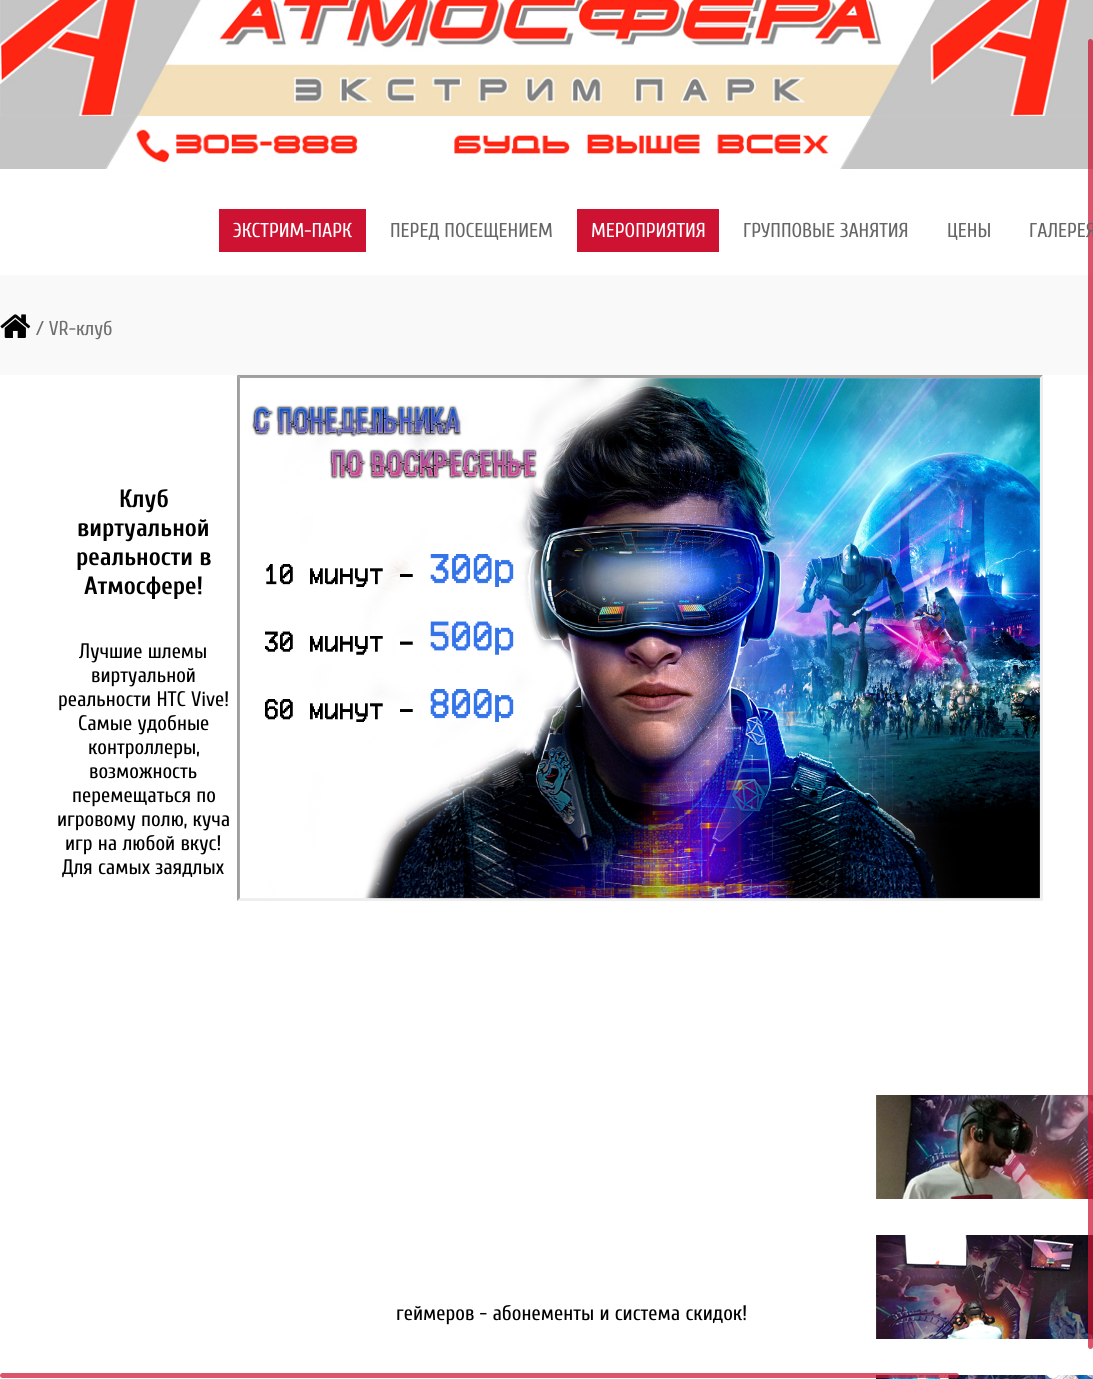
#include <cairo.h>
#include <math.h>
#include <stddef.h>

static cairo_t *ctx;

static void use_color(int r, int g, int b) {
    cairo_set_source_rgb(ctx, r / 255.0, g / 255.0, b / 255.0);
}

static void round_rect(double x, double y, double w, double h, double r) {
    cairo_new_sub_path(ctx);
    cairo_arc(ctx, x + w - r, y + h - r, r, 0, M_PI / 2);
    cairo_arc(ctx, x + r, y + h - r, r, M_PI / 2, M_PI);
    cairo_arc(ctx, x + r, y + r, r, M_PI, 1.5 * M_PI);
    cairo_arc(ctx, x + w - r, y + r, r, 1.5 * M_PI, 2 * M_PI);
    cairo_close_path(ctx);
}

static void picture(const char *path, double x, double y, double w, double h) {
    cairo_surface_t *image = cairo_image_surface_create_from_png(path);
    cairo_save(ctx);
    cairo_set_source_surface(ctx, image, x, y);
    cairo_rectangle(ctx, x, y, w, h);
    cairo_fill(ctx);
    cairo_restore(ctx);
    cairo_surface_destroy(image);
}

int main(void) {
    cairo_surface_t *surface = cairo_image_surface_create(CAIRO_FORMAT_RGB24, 1093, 1379);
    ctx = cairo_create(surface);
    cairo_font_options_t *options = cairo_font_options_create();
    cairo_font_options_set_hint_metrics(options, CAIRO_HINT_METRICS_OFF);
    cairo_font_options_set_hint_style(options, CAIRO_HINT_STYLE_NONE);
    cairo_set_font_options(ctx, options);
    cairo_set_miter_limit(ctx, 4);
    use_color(255, 255, 255);
    cairo_paint(ctx);
    picture("img1.png", 0, 0, 1093, 169);
    use_color(249, 249, 249);
    cairo_rectangle(ctx, 0, 275, 1093, 100);
    cairo_fill(ctx);
    picture("img4.png", 876, 1095, 217, 104);
    picture("img5.png", 876, 1235, 217, 104);
    cairo_set_source_rgba(ctx, 0.808, 0.075, 0.196, 0.72);
    round_rect(1088, 39, 5, 1310, 2.5);
    cairo_fill(ctx);
    use_color(206, 19, 50);
    cairo_rectangle(ctx, 219, 209, 147, 43);
    cairo_fill(ctx);
    cairo_select_font_face(ctx, "Cuprum", CAIRO_FONT_SLANT_NORMAL, CAIRO_FONT_WEIGHT_NORMAL);
    cairo_set_font_size(ctx, 20);
    use_color(255, 255, 255);
    cairo_move_to(ctx, 233, 237);
    cairo_show_text(ctx, "ЭКСТРИМ-ПАРК");
    use_color(102, 102, 102);
    cairo_move_to(ctx, 390, 237);
    cairo_show_text(ctx, "ПЕРЕД ПОСЕЩЕНИЕМ");
    use_color(206, 19, 50);
    cairo_rectangle(ctx, 577, 209, 142, 43);
    cairo_fill(ctx);
    use_color(255, 255, 255);
    cairo_move_to(ctx, 591, 237);
    cairo_show_text(ctx, "МЕРОПРИЯТИЯ");
    use_color(102, 102, 102);
    cairo_move_to(ctx, 743, 237);
    cairo_show_text(ctx, "ГРУППОВЫЕ ЗАНЯТИЯ");
    cairo_move_to(ctx, 947, 237);
    cairo_show_text(ctx, "ЦЕНЫ");
    cairo_move_to(ctx, 1029, 237);
    cairo_show_text(ctx, "ГАЛЕРЕЯ");
    picture("img2.png", 0, 314, 31, 24);
    use_color(112, 112, 112);
    cairo_move_to(ctx, 36, 335);
    cairo_show_text(ctx, "/ VR-клуб");
    use_color(159, 159, 159);
    cairo_new_path(ctx);
    cairo_move_to(ctx, 237, 375);
    cairo_line_to(ctx, 1043, 375);
    cairo_line_to(ctx, 1040, 378);
    cairo_line_to(ctx, 240, 378);
    cairo_close_path(ctx);
    cairo_fill(ctx);
    use_color(238, 238, 238);
    cairo_new_path(ctx);
    cairo_move_to(ctx, 1043, 375);
    cairo_line_to(ctx, 1043, 901);
    cairo_line_to(ctx, 1040, 898);
    cairo_line_to(ctx, 1040, 378);
    cairo_close_path(ctx);
    cairo_fill(ctx);
    cairo_new_path(ctx);
    cairo_move_to(ctx, 1043, 901);
    cairo_line_to(ctx, 237, 901);
    cairo_line_to(ctx, 240, 898);
    cairo_line_to(ctx, 1040, 898);
    cairo_close_path(ctx);
    cairo_fill(ctx);
    use_color(159, 159, 159);
    cairo_new_path(ctx);
    cairo_move_to(ctx, 237, 901);
    cairo_line_to(ctx, 237, 375);
    cairo_line_to(ctx, 240, 378);
    cairo_line_to(ctx, 240, 898);
    cairo_close_path(ctx);
    cairo_fill(ctx);
    picture("img3.png", 239, 377, 801, 522);
    cairo_select_font_face(ctx, "Cuprum", CAIRO_FONT_SLANT_NORMAL, CAIRO_FONT_WEIGHT_BOLD);
    cairo_set_font_size(ctx, 25);
    use_color(0, 0, 0);
    cairo_move_to(ctx, 119, 507);
    cairo_show_text(ctx, "Клуб");
    cairo_move_to(ctx, 77, 536);
    cairo_show_text(ctx, "виртуальной");
    cairo_move_to(ctx, 76, 565);
    cairo_show_text(ctx, "реальности в");
    cairo_move_to(ctx, 84, 594);
    cairo_show_text(ctx, "Атмосфере!");
    cairo_select_font_face(ctx, "Cuprum", CAIRO_FONT_SLANT_NORMAL, CAIRO_FONT_WEIGHT_NORMAL);
    cairo_set_font_size(ctx, 21);
    cairo_move_to(ctx, 79, 658);
    cairo_show_text(ctx, "Лучшие шлемы");
    cairo_move_to(ctx, 91, 682);
    cairo_show_text(ctx, "виртуальной");
    cairo_move_to(ctx, 58, 706);
    cairo_show_text(ctx, "реальности HTC Vive!");
    cairo_move_to(ctx, 78, 730);
    cairo_show_text(ctx, "Самые удобные");
    cairo_move_to(ctx, 88, 754);
    cairo_show_text(ctx, "контроллеры,");
    cairo_move_to(ctx, 89, 778);
    cairo_show_text(ctx, "возможность");
    cairo_move_to(ctx, 72, 802);
    cairo_show_text(ctx, "перемещаться по");
    cairo_move_to(ctx, 57, 826);
    cairo_show_text(ctx, "игровому полю, куча");
    cairo_move_to(ctx, 65, 850);
    cairo_show_text(ctx, "игр на любой вкус!");
    cairo_move_to(ctx, 62, 874);
    cairo_show_text(ctx, "Для самых заядлых");
    cairo_move_to(ctx, 396, 1320);
    cairo_show_text(ctx, "геймеров - абонементы и система скидок!");
    picture("img6.png", 876, 1375, 217, 4);
    cairo_set_source_rgba(ctx, 0.808, 0.075, 0.196, 0.72);
    round_rect(0, 1373, 959, 5, 2.5);
    cairo_fill(ctx);
    cairo_surface_write_to_png(surface, "result.png");
    cairo_font_options_destroy(options);
    cairo_destroy(ctx);
    cairo_surface_destroy(surface);
    return 0;
}
